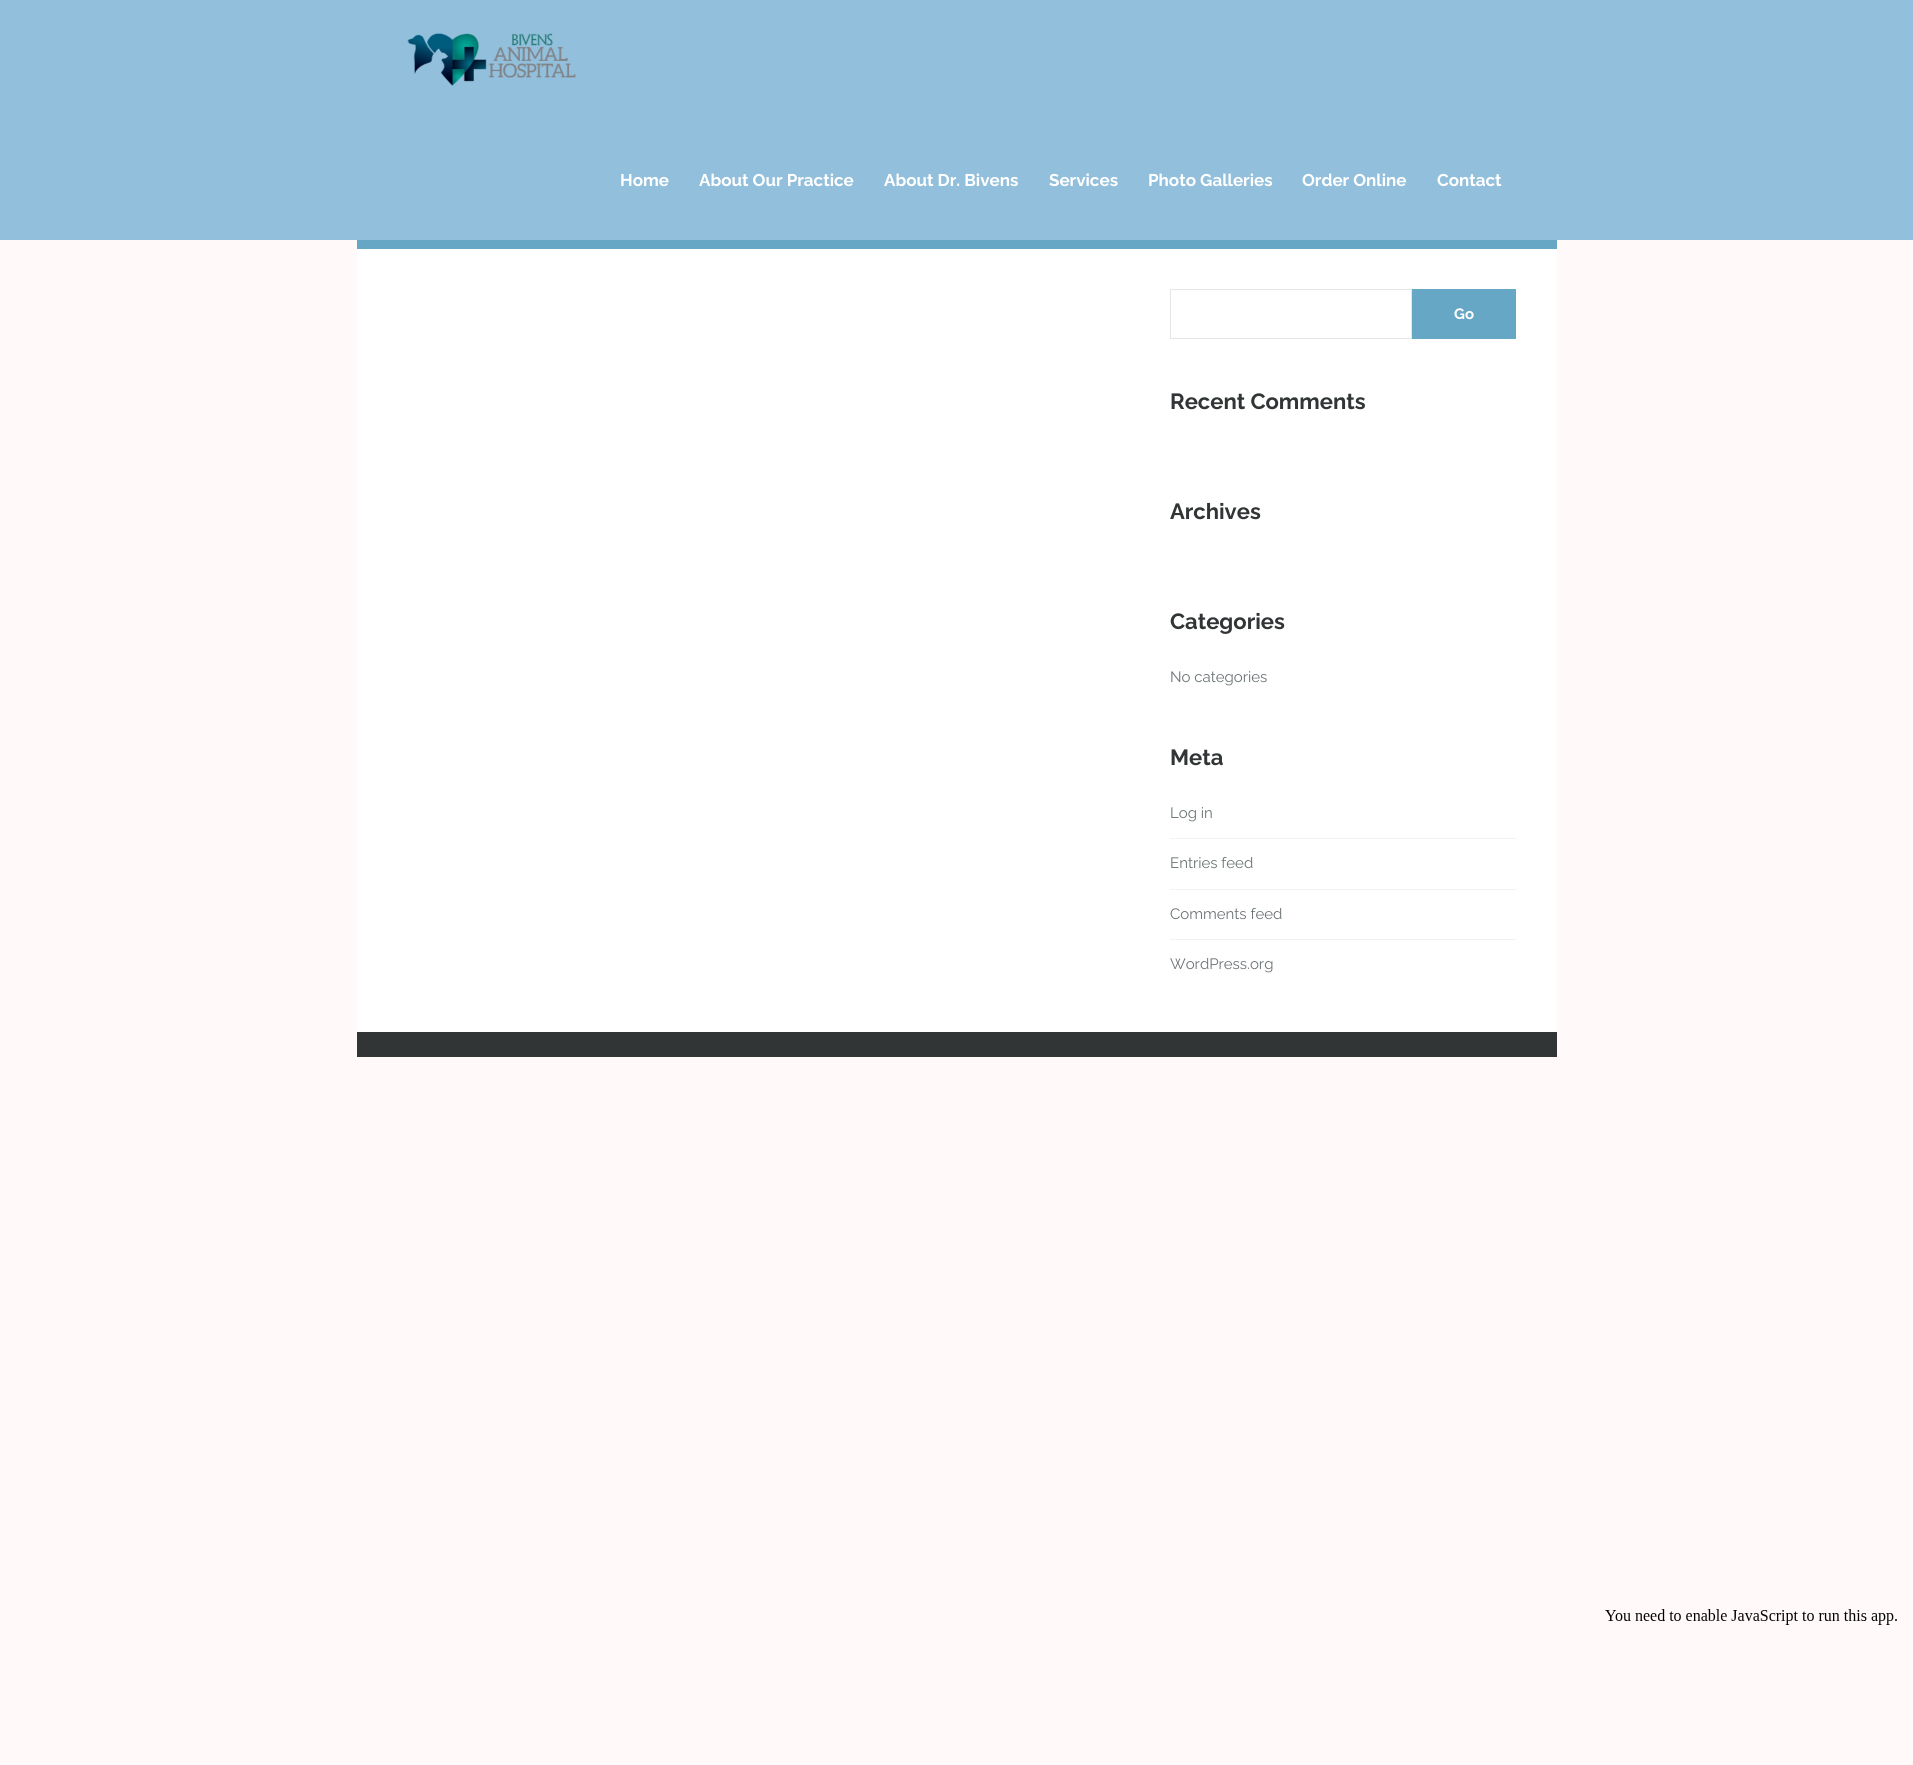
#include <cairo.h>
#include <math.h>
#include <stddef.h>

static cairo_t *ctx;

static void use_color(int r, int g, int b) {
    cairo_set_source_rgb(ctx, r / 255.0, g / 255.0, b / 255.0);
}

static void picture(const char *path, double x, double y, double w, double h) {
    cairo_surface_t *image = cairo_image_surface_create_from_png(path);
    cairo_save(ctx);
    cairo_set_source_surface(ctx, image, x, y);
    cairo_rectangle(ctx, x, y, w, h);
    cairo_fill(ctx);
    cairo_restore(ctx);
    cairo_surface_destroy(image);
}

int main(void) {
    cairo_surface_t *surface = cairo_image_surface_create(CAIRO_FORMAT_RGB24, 1913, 1765);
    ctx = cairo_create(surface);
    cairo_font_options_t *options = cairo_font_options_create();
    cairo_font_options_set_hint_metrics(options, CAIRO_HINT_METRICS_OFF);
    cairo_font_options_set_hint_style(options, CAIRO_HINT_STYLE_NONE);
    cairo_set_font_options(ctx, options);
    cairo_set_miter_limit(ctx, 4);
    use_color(255, 249, 249);
    cairo_paint(ctx);
    use_color(146, 191, 219);
    cairo_rectangle(ctx, 0, 0, 1913, 240);
    cairo_fill(ctx);
    picture("img1.png", 407, 33, 169, 53);
    cairo_select_font_face(ctx, "Raleway", CAIRO_FONT_SLANT_NORMAL, CAIRO_FONT_WEIGHT_BOLD);
    cairo_set_font_size(ctx, 17);
    use_color(255, 255, 255);
    cairo_move_to(ctx, 620, 186);
    cairo_show_text(ctx, "Home");
    cairo_move_to(ctx, 699, 186);
    cairo_show_text(ctx, "About Our Practice");
    cairo_move_to(ctx, 884, 186);
    cairo_show_text(ctx, "About Dr. Bivens");
    cairo_move_to(ctx, 1049, 186);
    cairo_show_text(ctx, "Services");
    cairo_move_to(ctx, 1148, 186);
    cairo_show_text(ctx, "Photo Galleries");
    cairo_move_to(ctx, 1302, 186);
    cairo_show_text(ctx, "Order Online");
    cairo_move_to(ctx, 1437, 186);
    cairo_show_text(ctx, "Contact");
    use_color(102, 167, 197);
    cairo_rectangle(ctx, 357, 240, 1200, 9);
    cairo_fill(ctx);
    use_color(255, 255, 255);
    cairo_rectangle(ctx, 357, 249, 1200, 783);
    cairo_fill(ctx);
    cairo_rectangle(ctx, 1170.5, 289.5, 241, 49);
    use_color(230, 230, 230);
    cairo_set_line_width(ctx, 1);
    cairo_stroke(ctx);
    use_color(102, 167, 197);
    cairo_rectangle(ctx, 1412, 289, 104, 50);
    cairo_fill(ctx);
    cairo_set_font_size(ctx, 15);
    use_color(255, 255, 255);
    cairo_move_to(ctx, 1454, 319);
    cairo_show_text(ctx, "Go");
    cairo_set_font_size(ctx, 22);
    use_color(49, 53, 54);
    cairo_move_to(ctx, 1170, 409);
    cairo_show_text(ctx, "Recent Comments");
    cairo_move_to(ctx, 1170, 519);
    cairo_show_text(ctx, "Archives");
    cairo_move_to(ctx, 1170, 629);
    cairo_show_text(ctx, "Categories");
    cairo_select_font_face(ctx, "Raleway", CAIRO_FONT_SLANT_NORMAL, CAIRO_FONT_WEIGHT_NORMAL);
    cairo_set_font_size(ctx, 15);
    use_color(108, 116, 118);
    cairo_move_to(ctx, 1170, 682);
    cairo_show_text(ctx, "No categories");
    cairo_select_font_face(ctx, "Raleway", CAIRO_FONT_SLANT_NORMAL, CAIRO_FONT_WEIGHT_BOLD);
    cairo_set_font_size(ctx, 22);
    use_color(49, 53, 54);
    cairo_move_to(ctx, 1170, 765);
    cairo_show_text(ctx, "Meta");
    use_color(245, 241, 240);
    cairo_rectangle(ctx, 1170, 838, 346, 1);
    cairo_fill(ctx);
    cairo_select_font_face(ctx, "Raleway", CAIRO_FONT_SLANT_NORMAL, CAIRO_FONT_WEIGHT_NORMAL);
    cairo_set_font_size(ctx, 15);
    use_color(108, 116, 118);
    cairo_move_to(ctx, 1170, 818);
    cairo_show_text(ctx, "Log in");
    use_color(245, 241, 240);
    cairo_rectangle(ctx, 1170, 889, 346, 1);
    cairo_fill(ctx);
    use_color(108, 116, 118);
    cairo_move_to(ctx, 1170, 868);
    cairo_show_text(ctx, "Entries feed");
    use_color(245, 241, 240);
    cairo_rectangle(ctx, 1170, 939, 346, 1);
    cairo_fill(ctx);
    use_color(108, 116, 118);
    cairo_move_to(ctx, 1170, 919);
    cairo_show_text(ctx, "Comments feed");
    cairo_move_to(ctx, 1170, 969);
    cairo_show_text(ctx, "WordPress.org");
    use_color(49, 53, 54);
    cairo_rectangle(ctx, 357, 1032, 1200, 25);
    cairo_fill(ctx);
    picture("img2.png", 1605, 1609, 292, 16);
    cairo_surface_write_to_png(surface, "result.png");
    cairo_font_options_destroy(options);
    cairo_destroy(ctx);
    cairo_surface_destroy(surface);
    return 0;
}
